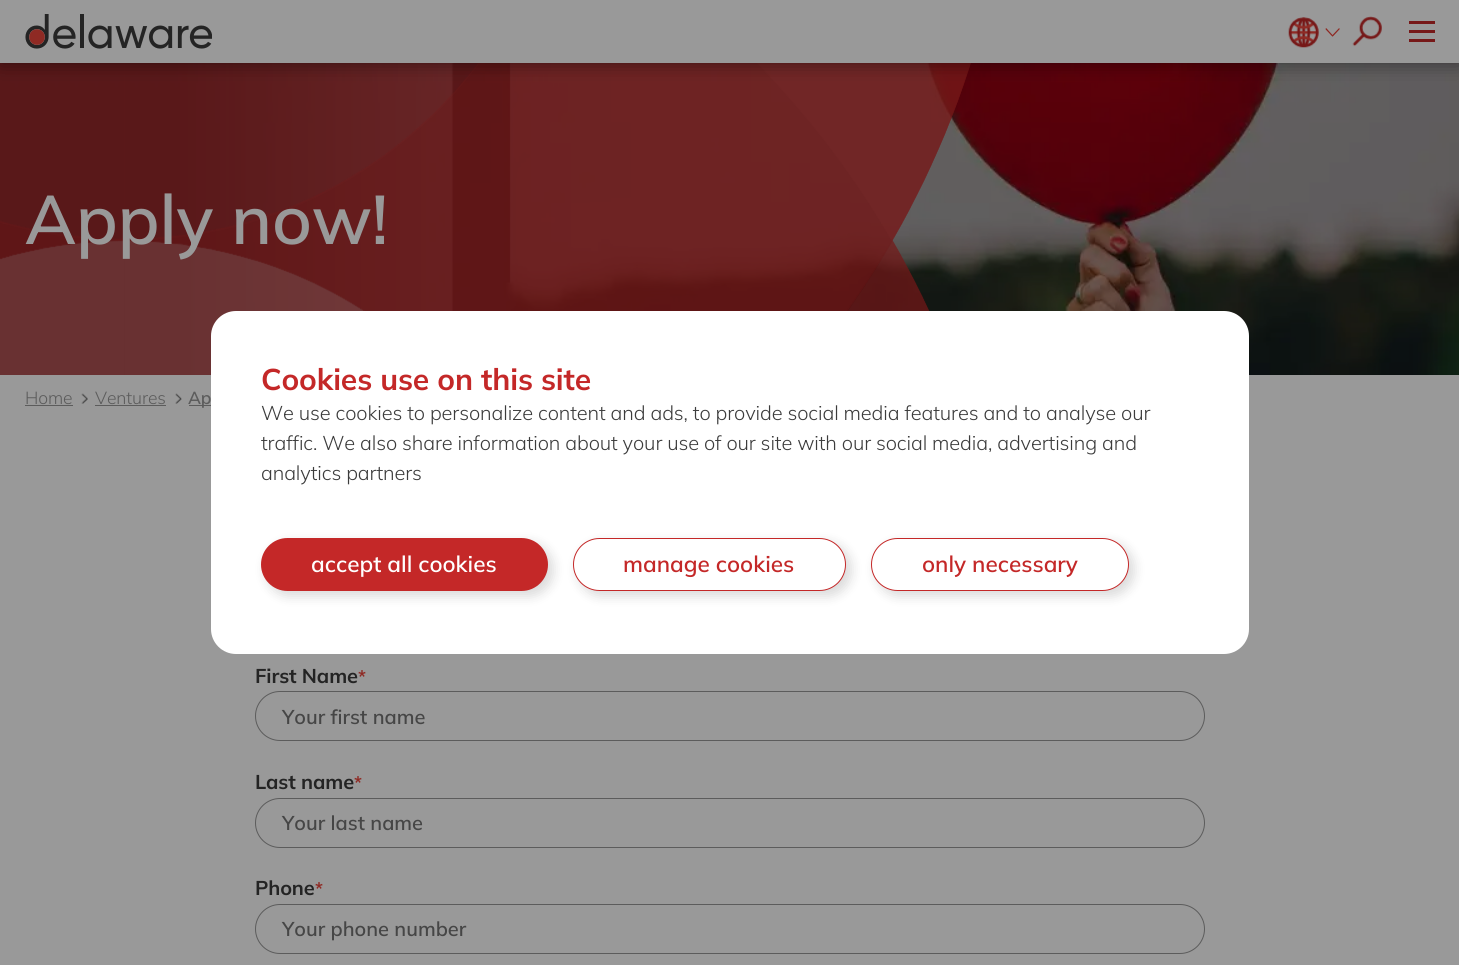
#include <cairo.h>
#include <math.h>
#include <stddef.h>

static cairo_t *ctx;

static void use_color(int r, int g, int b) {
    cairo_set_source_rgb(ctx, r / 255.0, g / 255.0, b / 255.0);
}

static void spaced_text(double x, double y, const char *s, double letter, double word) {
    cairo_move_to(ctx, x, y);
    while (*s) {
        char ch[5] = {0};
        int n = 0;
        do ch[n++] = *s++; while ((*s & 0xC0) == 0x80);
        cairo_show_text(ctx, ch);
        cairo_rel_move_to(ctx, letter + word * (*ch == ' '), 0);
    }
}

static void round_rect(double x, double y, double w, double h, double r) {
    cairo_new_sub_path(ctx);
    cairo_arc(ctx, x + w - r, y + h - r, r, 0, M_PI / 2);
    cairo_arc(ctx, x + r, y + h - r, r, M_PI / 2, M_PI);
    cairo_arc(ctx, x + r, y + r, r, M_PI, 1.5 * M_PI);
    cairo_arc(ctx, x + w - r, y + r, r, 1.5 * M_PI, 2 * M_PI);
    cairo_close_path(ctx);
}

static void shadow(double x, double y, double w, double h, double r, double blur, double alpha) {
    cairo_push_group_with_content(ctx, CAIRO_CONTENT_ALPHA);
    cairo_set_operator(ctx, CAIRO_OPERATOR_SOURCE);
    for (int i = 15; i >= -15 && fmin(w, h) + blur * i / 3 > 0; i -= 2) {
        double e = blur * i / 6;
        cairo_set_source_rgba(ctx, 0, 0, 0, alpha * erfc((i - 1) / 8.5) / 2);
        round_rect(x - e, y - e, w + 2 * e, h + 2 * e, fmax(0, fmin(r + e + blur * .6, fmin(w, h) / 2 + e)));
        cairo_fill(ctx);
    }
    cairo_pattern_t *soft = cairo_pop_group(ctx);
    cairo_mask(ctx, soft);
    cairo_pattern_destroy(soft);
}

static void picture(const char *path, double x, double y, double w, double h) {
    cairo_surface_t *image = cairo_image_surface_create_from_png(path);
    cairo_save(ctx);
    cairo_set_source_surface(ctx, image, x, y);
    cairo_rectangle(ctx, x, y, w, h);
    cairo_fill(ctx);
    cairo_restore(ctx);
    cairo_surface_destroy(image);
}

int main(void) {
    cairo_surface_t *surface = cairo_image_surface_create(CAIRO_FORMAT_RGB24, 1459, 965);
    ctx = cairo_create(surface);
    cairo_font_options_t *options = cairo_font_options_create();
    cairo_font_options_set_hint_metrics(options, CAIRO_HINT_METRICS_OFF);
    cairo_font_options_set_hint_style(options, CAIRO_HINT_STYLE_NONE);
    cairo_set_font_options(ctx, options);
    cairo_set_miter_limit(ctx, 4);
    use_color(153, 153, 153);
    cairo_paint(ctx);
    picture("img5.png", 0, 63, 1459, 312);
    picture("img6.png", 0, 63, 971, 312);
    use_color(0, 0, 0);
    shadow(0, 0, 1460, 63, 0, 9.5, 0.25);
    shadow(0, 0, 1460, 63, 0, 9.5, 0.25);
    use_color(153, 153, 153);
    cairo_rectangle(ctx, 0, 0, 1459, 63);
    cairo_fill(ctx);
    picture("img1.png", 25, 14, 187, 35);
    picture("img2.png", 1288, 17, 31, 31);
    picture("img3.png", 1325, 28, 15, 9);
    picture("img4.png", 1352, 16, 30, 31);
    use_color(118, 24, 24);
    cairo_rectangle(ctx, 1409, 21, 26, 3);
    cairo_fill(ctx);
    cairo_rectangle(ctx, 1409, 30, 26, 3);
    cairo_fill(ctx);
    cairo_rectangle(ctx, 1409, 39, 26, 3);
    cairo_fill(ctx);
    cairo_select_font_face(ctx, "Mulish SemiBold", CAIRO_FONT_SLANT_NORMAL, CAIRO_FONT_WEIGHT_NORMAL);
    cairo_set_font_size(ctx, 68.75);
    use_color(153, 153, 153);
    spaced_text(25, 244, "Apply now!", -0.12, 0);
    cairo_select_font_face(ctx, "Mulish Light", CAIRO_FONT_SLANT_NORMAL, CAIRO_FONT_WEIGHT_NORMAL);
    cairo_set_font_size(ctx, 17.5);
    use_color(92, 92, 92);
    spaced_text(25, 404, "Home", -0.12, 0);
    cairo_rectangle(ctx, 25, 405, 48, 1);
    cairo_fill(ctx);
    picture("img7.png", 81, 393, 7, 11);
    spaced_text(95, 404, "Ventures", -0.12, 0);
    cairo_rectangle(ctx, 95, 405, 71, 1);
    cairo_fill(ctx);
    picture("img8.png", 175, 393, 7, 11);
    cairo_rectangle(ctx, 189, 405, 22, 1);
    cairo_fill(ctx);
    cairo_select_font_face(ctx, "Mulish SemiBold", CAIRO_FONT_SLANT_NORMAL, CAIRO_FONT_WEIGHT_NORMAL);
    spaced_text(188, 404, "Ap", -0.12, 0);
    cairo_select_font_face(ctx, "Mulish", CAIRO_FONT_SLANT_NORMAL, CAIRO_FONT_WEIGHT_BOLD);
    cairo_set_font_size(ctx, 20);
    use_color(36, 36, 36);
    spaced_text(255, 683, "First Name", -0.12, 0);
    cairo_set_font_size(ctx, 17.5);
    use_color(143, 42, 36);
    spaced_text(358, 683, "*", -0.12, 0);
    round_rect(255.5, 691.5, 949, 49, 24.5);
    use_color(92, 92, 92);
    cairo_set_line_width(ctx, 1);
    cairo_stroke(ctx);
    cairo_select_font_face(ctx, "Mulish SemiBold", CAIRO_FONT_SLANT_NORMAL, CAIRO_FONT_WEIGHT_NORMAL);
    cairo_set_font_size(ctx, 20);
    use_color(70, 70, 70);
    cairo_move_to(ctx, 282, 724);
    cairo_show_text(ctx, "Your first name");
    cairo_select_font_face(ctx, "Mulish", CAIRO_FONT_SLANT_NORMAL, CAIRO_FONT_WEIGHT_BOLD);
    use_color(36, 36, 36);
    spaced_text(255, 789, "Last name", -0.12, 0);
    cairo_set_font_size(ctx, 17.5);
    use_color(143, 42, 36);
    spaced_text(354, 789, "*", -0.12, 0);
    round_rect(255.5, 798.5, 949, 49, 24.5);
    use_color(92, 92, 92);
    cairo_stroke(ctx);
    cairo_select_font_face(ctx, "Mulish SemiBold", CAIRO_FONT_SLANT_NORMAL, CAIRO_FONT_WEIGHT_NORMAL);
    cairo_set_font_size(ctx, 20);
    use_color(70, 70, 70);
    cairo_move_to(ctx, 282, 830);
    cairo_show_text(ctx, "Your last name");
    cairo_select_font_face(ctx, "Mulish", CAIRO_FONT_SLANT_NORMAL, CAIRO_FONT_WEIGHT_BOLD);
    use_color(36, 36, 36);
    spaced_text(255, 895, "Phone", -0.12, 0);
    cairo_set_font_size(ctx, 17.5);
    use_color(143, 42, 36);
    spaced_text(315, 895, "*", -0.12, 0);
    round_rect(255.5, 904.5, 949, 49, 24.5);
    use_color(92, 92, 92);
    cairo_stroke(ctx);
    cairo_select_font_face(ctx, "Mulish SemiBold", CAIRO_FONT_SLANT_NORMAL, CAIRO_FONT_WEIGHT_NORMAL);
    cairo_set_font_size(ctx, 20);
    use_color(70, 70, 70);
    cairo_move_to(ctx, 282, 936);
    cairo_show_text(ctx, "Your phone number");
    use_color(255, 255, 255);
    round_rect(211, 311, 1038, 343, 25);
    cairo_fill(ctx);
    cairo_select_font_face(ctx, "Mulish", CAIRO_FONT_SLANT_NORMAL, CAIRO_FONT_WEIGHT_BOLD);
    cairo_set_font_size(ctx, 30);
    use_color(196, 40, 40);
    spaced_text(261, 390, "Cookies use on this site", -0.12, 0);
    cairo_select_font_face(ctx, "Mulish Light", CAIRO_FONT_SLANT_NORMAL, CAIRO_FONT_WEIGHT_NORMAL);
    cairo_set_font_size(ctx, 20);
    use_color(60, 60, 60);
    spaced_text(261, 420, "We use cookies to personalize content and ads, to provide social media features and to analyse our", -0.12, 0);
    spaced_text(261, 450, "traffic. We also share information about your use of our site with our social media, advertising and", -0.12, 0);
    spaced_text(261, 480, "analytics partners", -0.12, 0);
    use_color(0, 0, 0);
    shadow(266, 543, 287, 53, 26.5, 6, 0.15);
    use_color(196, 40, 40);
    round_rect(261, 538, 287, 53, 26.5);
    cairo_fill(ctx);
    cairo_select_font_face(ctx, "Mulish SemiBold", CAIRO_FONT_SLANT_NORMAL, CAIRO_FONT_WEIGHT_NORMAL);
    cairo_set_font_size(ctx, 22.5);
    use_color(255, 255, 255);
    cairo_move_to(ctx, 311, 572);
    cairo_show_text(ctx, "accept all cookies");
    use_color(0, 0, 0);
    shadow(578, 543, 273, 53, 26.5, 6, 0.15);
    use_color(255, 255, 255);
    round_rect(573.5, 538.5, 272, 52, 26);
    cairo_fill_preserve(ctx);
    use_color(196, 40, 40);
    cairo_stroke(ctx);
    cairo_move_to(ctx, 623, 572);
    cairo_show_text(ctx, "manage cookies");
    use_color(0, 0, 0);
    shadow(876, 543, 258, 53, 26.5, 6, 0.15);
    use_color(255, 255, 255);
    round_rect(871.5, 538.5, 257, 52, 26);
    cairo_fill_preserve(ctx);
    use_color(196, 40, 40);
    cairo_stroke(ctx);
    cairo_move_to(ctx, 922, 572);
    cairo_show_text(ctx, "only necessary");
    cairo_surface_write_to_png(surface, "result.png");
    cairo_font_options_destroy(options);
    cairo_destroy(ctx);
    cairo_surface_destroy(surface);
    return 0;
}
